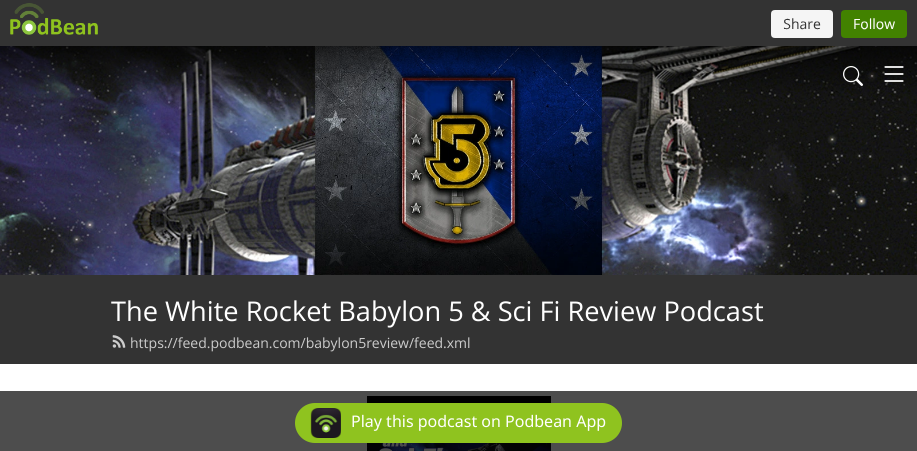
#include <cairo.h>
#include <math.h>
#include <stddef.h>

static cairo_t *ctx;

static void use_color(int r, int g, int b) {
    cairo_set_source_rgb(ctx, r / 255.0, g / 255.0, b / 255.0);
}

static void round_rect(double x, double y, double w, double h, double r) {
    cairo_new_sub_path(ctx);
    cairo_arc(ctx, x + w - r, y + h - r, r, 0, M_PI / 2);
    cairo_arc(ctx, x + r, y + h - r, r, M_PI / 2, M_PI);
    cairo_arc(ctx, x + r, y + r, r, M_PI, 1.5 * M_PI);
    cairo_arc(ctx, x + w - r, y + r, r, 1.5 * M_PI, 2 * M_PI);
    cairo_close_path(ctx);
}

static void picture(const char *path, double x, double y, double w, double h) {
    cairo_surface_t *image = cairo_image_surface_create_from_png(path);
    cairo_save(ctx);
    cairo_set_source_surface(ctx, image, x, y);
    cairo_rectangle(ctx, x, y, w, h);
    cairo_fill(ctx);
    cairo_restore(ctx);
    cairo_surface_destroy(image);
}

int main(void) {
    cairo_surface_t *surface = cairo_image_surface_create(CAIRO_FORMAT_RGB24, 917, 451);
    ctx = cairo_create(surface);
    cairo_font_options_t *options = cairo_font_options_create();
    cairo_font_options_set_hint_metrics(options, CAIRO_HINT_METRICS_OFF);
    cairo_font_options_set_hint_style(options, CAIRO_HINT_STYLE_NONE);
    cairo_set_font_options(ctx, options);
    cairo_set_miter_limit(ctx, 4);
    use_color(255, 255, 255);
    cairo_paint(ctx);
    use_color(77, 77, 77);
    cairo_rectangle(ctx, 0, 391, 917, 60);
    cairo_fill(ctx);
    use_color(51, 51, 51);
    cairo_rectangle(ctx, 0, 0, 917, 46);
    cairo_fill(ctx);
    picture("img1.png", 10, 3, 897, 35);
    picture("img4.png", 0, 46, 917, 229);
    picture("img2.png", 843, 66, 20, 20);
    picture("img3.png", 884, 66, 20, 16);
    cairo_rectangle(ctx, 0, 275, 917, 89);
    cairo_fill(ctx);
    cairo_select_font_face(ctx, "Open Sans", CAIRO_FONT_SLANT_NORMAL, CAIRO_FONT_WEIGHT_NORMAL);
    cairo_set_font_size(ctx, 27.2);
    use_color(255, 255, 255);
    cairo_move_to(ctx, 111, 321);
    cairo_show_text(ctx, "The White Rocket Babylon 5 & Sci Fi Review Podcast");
    picture("img5.png", 112, 335, 14, 13);
    cairo_set_font_size(ctx, 14);
    use_color(204, 204, 204);
    cairo_move_to(ctx, 130, 348);
    cairo_show_text(ctx, "https://feed.podbean.com/babylon5review/feed.xml");
    picture("img6.png", 367, 396, 184, 55);
    use_color(143, 195, 31);
    round_rect(295, 403, 327, 40, 20);
    cairo_fill(ctx);
    picture("img7.png", 310, 408, 31, 30);
    cairo_select_font_face(ctx, "Noto Sans", CAIRO_FONT_SLANT_NORMAL, CAIRO_FONT_WEIGHT_NORMAL);
    cairo_set_font_size(ctx, 16);
    use_color(255, 255, 255);
    cairo_move_to(ctx, 351, 427);
    cairo_show_text(ctx, "Play this podcast on Podbean App");
    cairo_surface_write_to_png(surface, "result.png");
    cairo_font_options_destroy(options);
    cairo_destroy(ctx);
    cairo_surface_destroy(surface);
    return 0;
}
